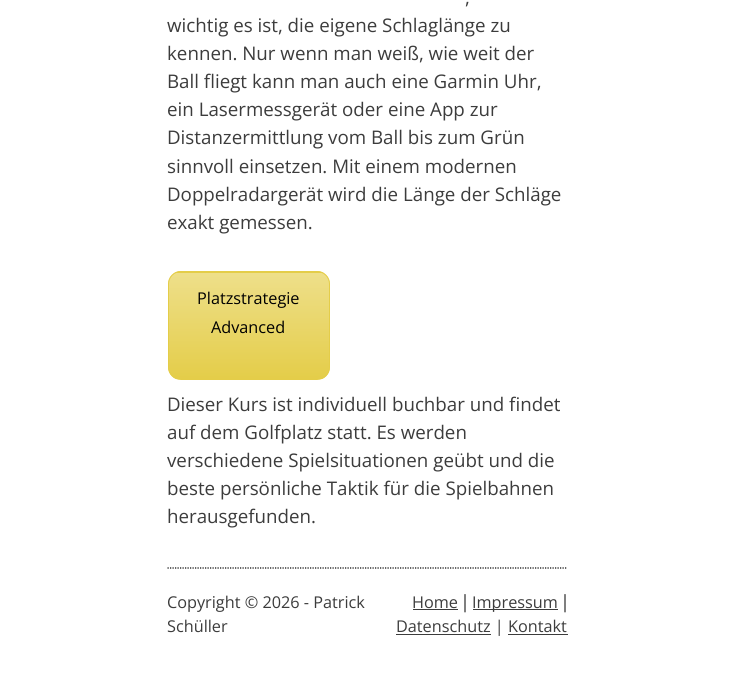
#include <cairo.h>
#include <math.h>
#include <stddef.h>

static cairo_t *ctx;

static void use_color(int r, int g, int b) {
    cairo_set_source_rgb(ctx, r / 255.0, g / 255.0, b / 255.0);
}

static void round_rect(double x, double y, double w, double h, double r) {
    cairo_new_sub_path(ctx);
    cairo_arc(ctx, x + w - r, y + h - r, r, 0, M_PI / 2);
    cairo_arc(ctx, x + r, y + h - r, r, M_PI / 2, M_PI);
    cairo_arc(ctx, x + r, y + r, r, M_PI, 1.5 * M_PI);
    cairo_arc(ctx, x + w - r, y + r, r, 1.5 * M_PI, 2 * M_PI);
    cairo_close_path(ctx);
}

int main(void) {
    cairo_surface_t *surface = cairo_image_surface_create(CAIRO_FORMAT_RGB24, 733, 674);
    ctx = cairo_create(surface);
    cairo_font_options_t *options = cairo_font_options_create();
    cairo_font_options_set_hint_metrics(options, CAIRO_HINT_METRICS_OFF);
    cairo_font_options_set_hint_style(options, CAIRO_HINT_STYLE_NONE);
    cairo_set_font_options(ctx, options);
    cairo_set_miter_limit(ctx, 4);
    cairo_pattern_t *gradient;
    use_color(255, 255, 255);
    cairo_paint(ctx);
    cairo_select_font_face(ctx, "Open Sans", CAIRO_FONT_SLANT_NORMAL, CAIRO_FONT_WEIGHT_NORMAL);
    cairo_set_font_size(ctx, 18.75);
    use_color(60, 60, 60);
    cairo_move_to(ctx, 465, 4);
    cairo_show_text(ctx, ",");
    cairo_move_to(ctx, 167, 32);
    cairo_show_text(ctx, "wichtig es ist, die eigene Schlaglänge zu");
    cairo_move_to(ctx, 167, 60);
    cairo_show_text(ctx, "kennen. Nur wenn man weiß, wie weit der");
    cairo_move_to(ctx, 167, 88);
    cairo_show_text(ctx, "Ball fliegt kann man auch eine Garmin Uhr,");
    cairo_move_to(ctx, 167, 116);
    cairo_show_text(ctx, "ein Lasermessgerät oder eine App zur");
    cairo_move_to(ctx, 167, 144);
    cairo_show_text(ctx, "Distanzermittlung vom Ball bis zum Grün");
    cairo_move_to(ctx, 167, 173);
    cairo_show_text(ctx, "sinnvoll einsetzen. Mit einem modernen");
    cairo_move_to(ctx, 167, 201);
    cairo_show_text(ctx, "Doppelradargerät wird die Länge der Schläge");
    cairo_move_to(ctx, 167, 229);
    cairo_show_text(ctx, "exakt gemessen.");
    cairo_save(ctx);
    round_rect(168, 271, 162, 109, 13);
    cairo_clip(ctx);
    gradient = cairo_pattern_create_linear(249, 166, 249, 273);
    cairo_pattern_add_color_stop_rgba(gradient, 0, 0.933, 0.875, 0.541, 1);
    cairo_pattern_add_color_stop_rgba(gradient, 1, 0.894, 0.804, 0.286, 1);
    cairo_set_source(ctx, gradient);
    cairo_pattern_destroy(gradient);
    cairo_rectangle(ctx, 168, 271, 162, 2);
    cairo_fill(ctx);
    gradient = cairo_pattern_create_linear(249, 273, 249, 379);
    cairo_pattern_add_color_stop_rgba(gradient, 0, 0.933, 0.875, 0.541, 1);
    cairo_pattern_add_color_stop_rgba(gradient, 1, 0.894, 0.804, 0.286, 1);
    cairo_set_source(ctx, gradient);
    cairo_pattern_destroy(gradient);
    cairo_rectangle(ctx, 168, 273, 162, 106);
    cairo_fill(ctx);
    cairo_restore(ctx);
    round_rect(168.5, 271.5, 161, 108, 12.5);
    use_color(228, 205, 73);
    cairo_set_line_width(ctx, 1);
    cairo_stroke(ctx);
    cairo_set_font_size(ctx, 16.25);
    use_color(0, 0, 0);
    cairo_move_to(ctx, 197, 304);
    cairo_show_text(ctx, "Platzstrategie");
    cairo_move_to(ctx, 211, 333);
    cairo_show_text(ctx, "Advanced");
    cairo_set_font_size(ctx, 18.75);
    use_color(60, 60, 60);
    cairo_move_to(ctx, 167, 411);
    cairo_show_text(ctx, "Dieser Kurs ist individuell buchbar und findet");
    cairo_move_to(ctx, 167, 439);
    cairo_show_text(ctx, "auf dem Golfplatz statt. Es werden");
    cairo_move_to(ctx, 167, 467);
    cairo_show_text(ctx, "verschiedene Spielsituationen geübt und die");
    cairo_move_to(ctx, 167, 495);
    cairo_show_text(ctx, "beste persönliche Taktik für die Spielbahnen");
    cairo_move_to(ctx, 167, 523);
    cairo_show_text(ctx, "herausgefunden.");
    cairo_new_path(ctx);
    cairo_move_to(ctx, 167.5, 568);
    cairo_line_to(ctx, 567.5, 568);
    use_color(0, 0, 0);
    cairo_set_line_width(ctx, 1.2);
    cairo_set_dash(ctx, (double[]){1.25, 1.25}, 2, 0);
    cairo_stroke(ctx);
    cairo_set_font_size(ctx, 16.25);
    use_color(60, 60, 60);
    cairo_move_to(ctx, 167, 608);
    cairo_show_text(ctx, "Copyright © 2026 - Patrick");
    cairo_move_to(ctx, 167, 632);
    cairo_show_text(ctx, "Schüller");
    cairo_move_to(ctx, 412, 608);
    cairo_show_text(ctx, "Home");
    cairo_rectangle(ctx, 413, 609, 45, 1);
    cairo_fill(ctx);
    cairo_select_font_face(ctx, "Liberation Serif", CAIRO_FONT_SLANT_NORMAL, CAIRO_FONT_WEIGHT_NORMAL);
    cairo_set_font_size(ctx, 20);
    use_color(0, 0, 0);
    cairo_move_to(ctx, 463, 608);
    cairo_show_text(ctx, "|");
    use_color(60, 60, 60);
    cairo_rectangle(ctx, 473, 609, 85, 1);
    cairo_fill(ctx);
    cairo_select_font_face(ctx, "Open Sans", CAIRO_FONT_SLANT_NORMAL, CAIRO_FONT_WEIGHT_NORMAL);
    cairo_set_font_size(ctx, 16.25);
    cairo_move_to(ctx, 472, 608);
    cairo_show_text(ctx, "Impressum");
    cairo_select_font_face(ctx, "Liberation Serif", CAIRO_FONT_SLANT_NORMAL, CAIRO_FONT_WEIGHT_NORMAL);
    cairo_set_font_size(ctx, 20);
    use_color(0, 0, 0);
    cairo_move_to(ctx, 563, 608);
    cairo_show_text(ctx, "|");
    use_color(60, 60, 60);
    cairo_rectangle(ctx, 396, 634, 95, 1);
    cairo_fill(ctx);
    cairo_select_font_face(ctx, "Open Sans", CAIRO_FONT_SLANT_NORMAL, CAIRO_FONT_WEIGHT_NORMAL);
    cairo_set_font_size(ctx, 16.25);
    cairo_move_to(ctx, 396, 632);
    cairo_show_text(ctx, "Datenschutz | Kontakt");
    cairo_rectangle(ctx, 508, 634, 60, 1);
    cairo_fill(ctx);
    cairo_surface_write_to_png(surface, "result.png");
    cairo_font_options_destroy(options);
    cairo_destroy(ctx);
    cairo_surface_destroy(surface);
    return 0;
}
